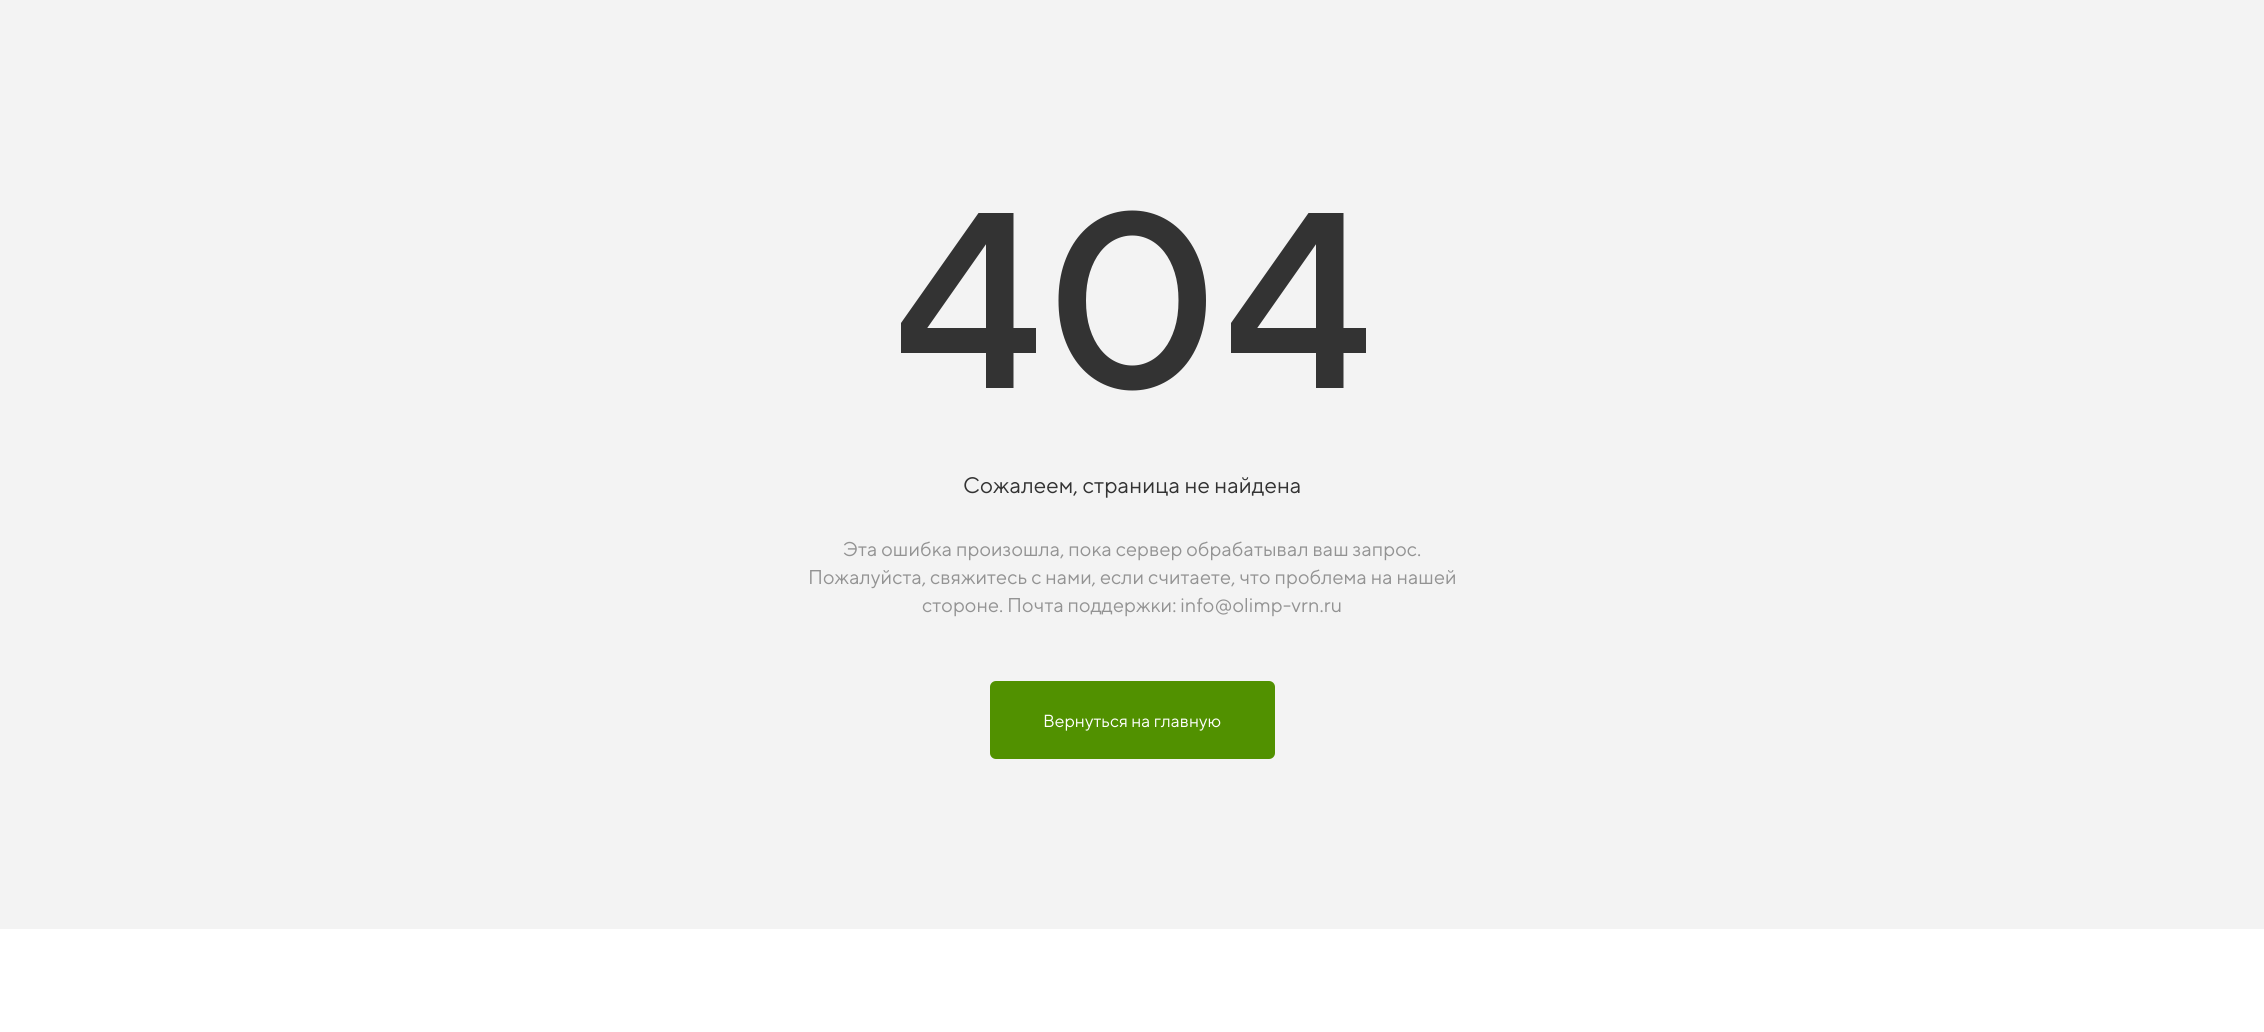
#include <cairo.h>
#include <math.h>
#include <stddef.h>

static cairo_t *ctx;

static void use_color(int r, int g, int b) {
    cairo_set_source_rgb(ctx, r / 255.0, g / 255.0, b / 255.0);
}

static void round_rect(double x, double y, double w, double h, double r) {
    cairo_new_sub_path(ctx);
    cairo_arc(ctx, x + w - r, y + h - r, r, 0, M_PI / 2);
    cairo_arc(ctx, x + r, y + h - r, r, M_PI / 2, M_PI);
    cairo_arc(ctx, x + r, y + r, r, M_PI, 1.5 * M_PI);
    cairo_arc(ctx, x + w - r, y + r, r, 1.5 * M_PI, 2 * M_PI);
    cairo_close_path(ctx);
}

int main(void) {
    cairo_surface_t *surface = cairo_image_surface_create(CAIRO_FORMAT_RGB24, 2264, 1032);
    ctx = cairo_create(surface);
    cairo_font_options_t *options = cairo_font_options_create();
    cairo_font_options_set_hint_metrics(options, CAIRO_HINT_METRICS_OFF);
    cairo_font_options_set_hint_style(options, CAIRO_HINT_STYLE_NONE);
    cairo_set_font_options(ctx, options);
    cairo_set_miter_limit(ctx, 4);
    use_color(255, 255, 255);
    cairo_paint(ctx);
    use_color(243, 243, 243);
    cairo_rectangle(ctx, 0, 0, 2264, 929);
    cairo_fill(ctx);
    cairo_select_font_face(ctx, "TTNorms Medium", CAIRO_FONT_SLANT_NORMAL, CAIRO_FONT_WEIGHT_NORMAL);
    cairo_set_font_size(ctx, 250);
    use_color(51, 51, 51);
    cairo_move_to(ctx, 891, 388);
    cairo_show_text(ctx, "404");
    cairo_select_font_face(ctx, "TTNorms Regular", CAIRO_FONT_SLANT_NORMAL, CAIRO_FONT_WEIGHT_NORMAL);
    cairo_set_font_size(ctx, 22.5);
    cairo_move_to(ctx, 963, 493);
    cairo_show_text(ctx, "Сожалеем, страница не найдена");
    cairo_set_font_size(ctx, 20);
    use_color(147, 147, 147);
    cairo_move_to(ctx, 843, 556);
    cairo_show_text(ctx, "Эта ошибка произошла, пока сервер обрабатывал ваш запрос.");
    cairo_move_to(ctx, 808, 584);
    cairo_show_text(ctx, "Пожалуйста, свяжитесь с нами, если считаете, что проблема на нашей");
    cairo_move_to(ctx, 922, 612);
    cairo_show_text(ctx, "стороне. Почта поддержки: info@olimp-vrn.ru");
    use_color(81, 145, 0);
    round_rect(990, 681, 285, 78, 6);
    cairo_fill(ctx);
    cairo_set_font_size(ctx, 17.5);
    use_color(255, 255, 255);
    cairo_move_to(ctx, 1043, 727);
    cairo_show_text(ctx, "Вернуться на главную");
    cairo_surface_write_to_png(surface, "result.png");
    cairo_font_options_destroy(options);
    cairo_destroy(ctx);
    cairo_surface_destroy(surface);
    return 0;
}
